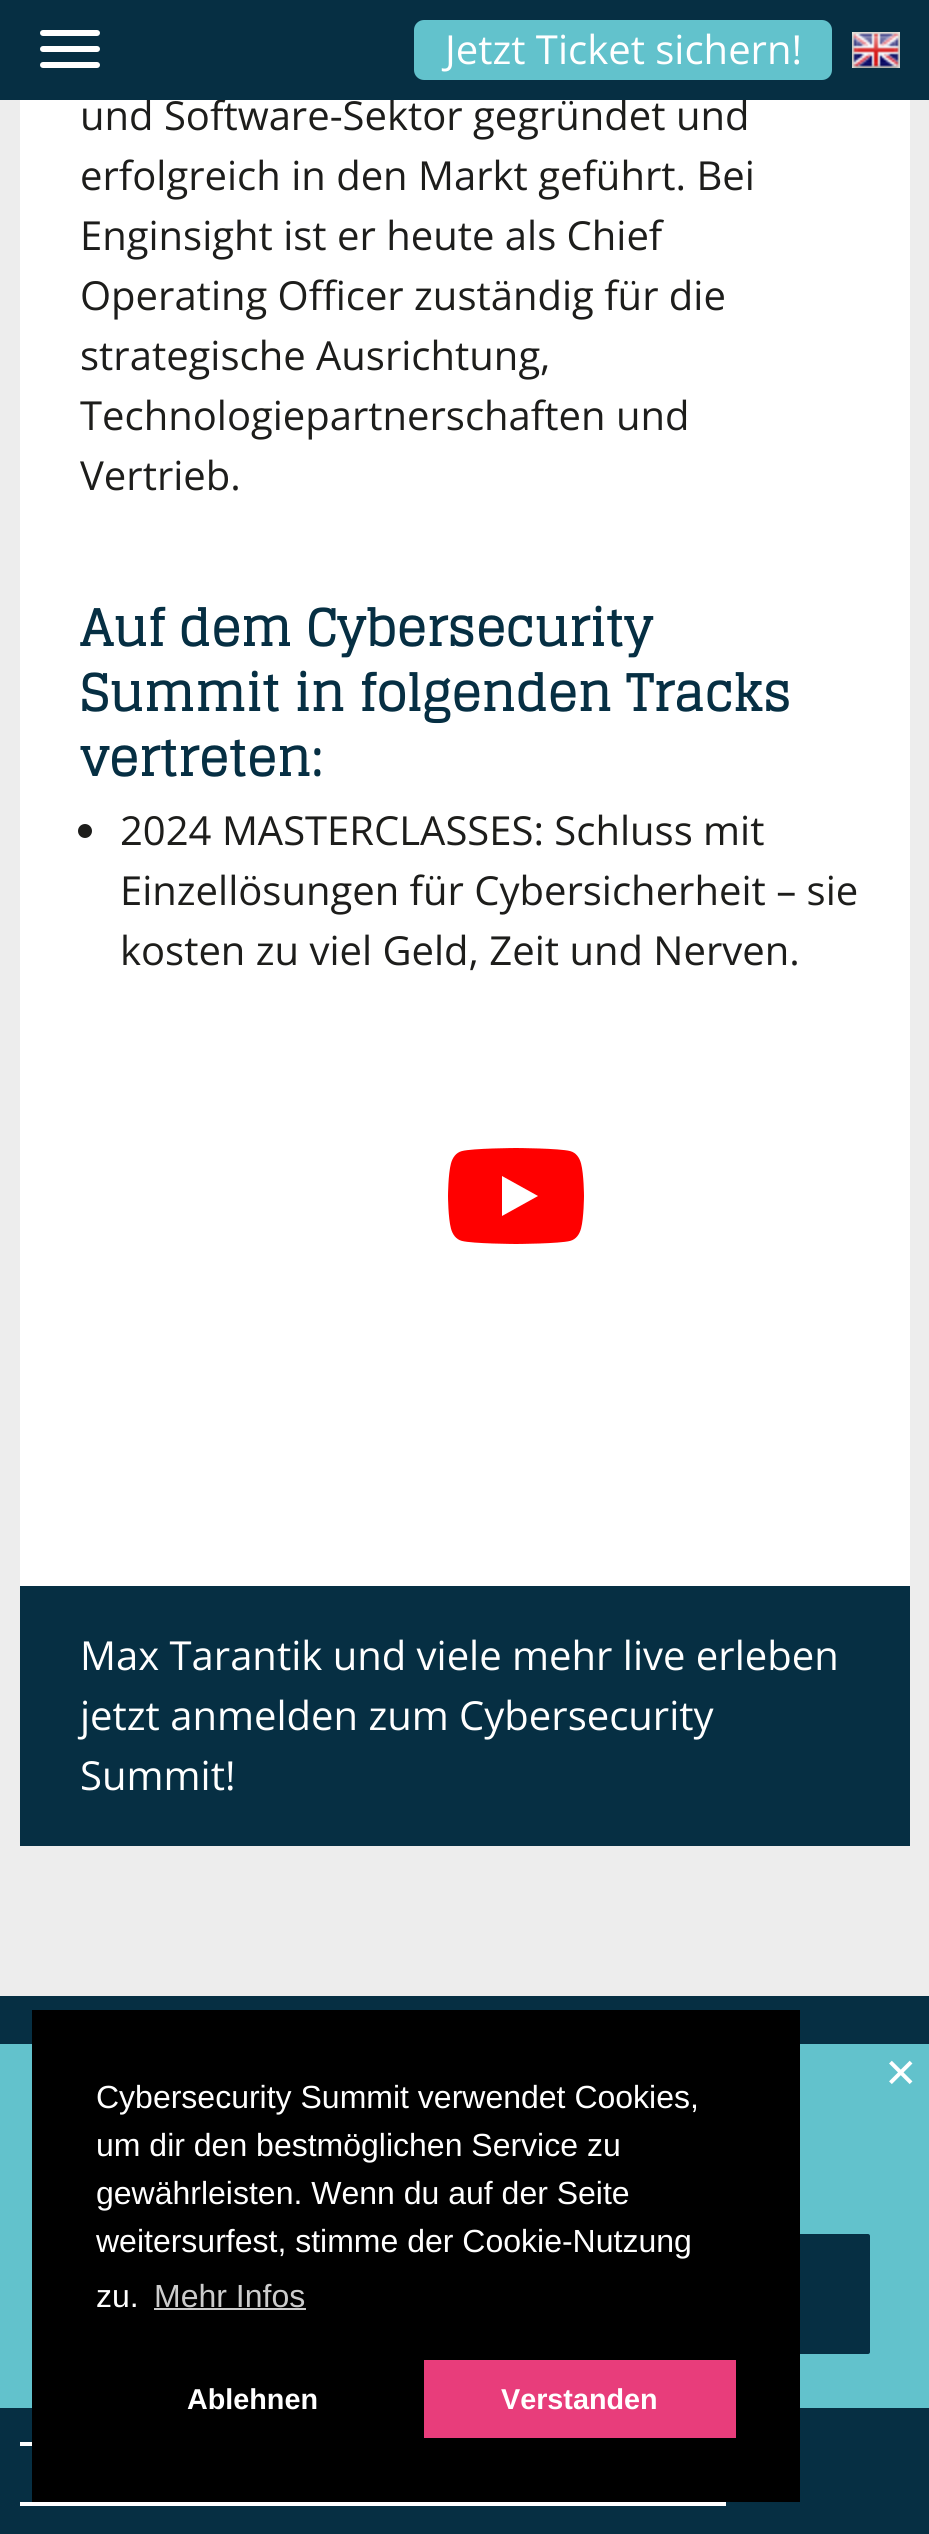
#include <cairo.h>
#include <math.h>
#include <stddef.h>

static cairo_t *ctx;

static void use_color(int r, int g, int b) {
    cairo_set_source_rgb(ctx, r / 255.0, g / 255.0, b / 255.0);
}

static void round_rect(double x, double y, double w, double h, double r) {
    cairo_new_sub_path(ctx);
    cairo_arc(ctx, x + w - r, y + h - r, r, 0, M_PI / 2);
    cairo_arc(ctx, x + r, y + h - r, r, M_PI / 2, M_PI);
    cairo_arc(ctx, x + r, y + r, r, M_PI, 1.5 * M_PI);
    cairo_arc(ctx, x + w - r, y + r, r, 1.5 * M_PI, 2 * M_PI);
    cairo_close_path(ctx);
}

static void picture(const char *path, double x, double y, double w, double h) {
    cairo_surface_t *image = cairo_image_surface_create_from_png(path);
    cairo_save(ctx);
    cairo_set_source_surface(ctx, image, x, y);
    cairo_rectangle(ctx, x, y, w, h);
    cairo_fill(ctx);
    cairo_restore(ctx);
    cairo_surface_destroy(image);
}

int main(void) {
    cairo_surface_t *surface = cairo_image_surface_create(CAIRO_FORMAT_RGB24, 929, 2534);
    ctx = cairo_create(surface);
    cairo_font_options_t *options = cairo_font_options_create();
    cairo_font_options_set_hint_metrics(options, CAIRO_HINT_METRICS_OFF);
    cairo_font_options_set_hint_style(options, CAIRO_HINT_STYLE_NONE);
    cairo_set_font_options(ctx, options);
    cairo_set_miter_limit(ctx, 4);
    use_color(6, 47, 67);
    cairo_paint(ctx);
    use_color(237, 237, 237);
    cairo_rectangle(ctx, 0, 100, 929, 1896);
    cairo_fill(ctx);
    use_color(255, 255, 255);
    cairo_rectangle(ctx, 20, 100, 890, 1486);
    cairo_fill(ctx);
    cairo_select_font_face(ctx, "Open Sans", CAIRO_FONT_SLANT_NORMAL, CAIRO_FONT_WEIGHT_NORMAL);
    cairo_set_font_size(ctx, 40);
    use_color(29, 29, 27);
    cairo_move_to(ctx, 80, 130);
    cairo_show_text(ctx, "und Software-Sektor gegründet und");
    use_color(6, 47, 67);
    cairo_rectangle(ctx, 147, 99, 599, 1);
    cairo_fill(ctx);
    use_color(255, 255, 255);
    round_rect(40, 62, 60, 6, 3);
    cairo_fill(ctx);
    round_rect(40, 30, 60, 6, 3);
    cairo_fill(ctx);
    round_rect(40, 46, 60, 6, 3);
    cairo_fill(ctx);
    use_color(98, 194, 204);
    round_rect(414, 20, 418, 60, 10);
    cairo_fill(ctx);
    use_color(255, 255, 255);
    cairo_move_to(ctx, 445, 64);
    cairo_show_text(ctx, "Jetzt Ticket sichern!");
    picture("img1.png", 852, 32, 48, 36);
    use_color(29, 29, 27);
    cairo_move_to(ctx, 80, 190);
    cairo_show_text(ctx, "erfolgreich in den Markt geführt. Bei");
    cairo_move_to(ctx, 80, 250);
    cairo_show_text(ctx, "Enginsight ist er heute als Chief");
    cairo_move_to(ctx, 80, 310);
    cairo_show_text(ctx, "Operating Officer zuständig für die");
    cairo_move_to(ctx, 80, 370);
    cairo_show_text(ctx, "strategische Ausrichtung,");
    cairo_move_to(ctx, 80, 430);
    cairo_show_text(ctx, "Technologiepartnerschaften und");
    cairo_move_to(ctx, 80, 490);
    cairo_show_text(ctx, "Vertrieb.");
    cairo_select_font_face(ctx, "Glegoo", CAIRO_FONT_SLANT_NORMAL, CAIRO_FONT_WEIGHT_BOLD);
    cairo_set_font_size(ctx, 50);
    use_color(6, 47, 67);
    cairo_move_to(ctx, 80, 646);
    cairo_show_text(ctx, "Auf dem Cybersecurity");
    cairo_move_to(ctx, 80, 711);
    cairo_show_text(ctx, "Summit in folgenden Tracks");
    cairo_move_to(ctx, 80, 776);
    cairo_show_text(ctx, "vertreten:");
    use_color(29, 29, 27);
    cairo_new_path(ctx);
    cairo_arc(ctx, 85, 831, 7, 0, 2 * M_PI);
    cairo_fill(ctx);
    cairo_select_font_face(ctx, "Open Sans", CAIRO_FONT_SLANT_NORMAL, CAIRO_FONT_WEIGHT_NORMAL);
    cairo_set_font_size(ctx, 40);
    cairo_move_to(ctx, 120, 845);
    cairo_show_text(ctx, "2024 MASTERCLASSES: Schluss mit");
    cairo_move_to(ctx, 120, 905);
    cairo_show_text(ctx, "Einzellösungen für Cybersicherheit – sie");
    cairo_move_to(ctx, 120, 965);
    cairo_show_text(ctx, "kosten zu viel Geld, Zeit und Nerven.");
    picture("img2.png", 448, 1148, 136, 96);
    use_color(6, 47, 67);
    cairo_rectangle(ctx, 20, 1586, 890, 260);
    cairo_fill(ctx);
    use_color(255, 255, 255);
    cairo_move_to(ctx, 80, 1670);
    cairo_show_text(ctx, "Max Tarantik und viele mehr live erleben");
    cairo_move_to(ctx, 80, 1730);
    cairo_show_text(ctx, "jetzt anmelden zum Cybersecurity");
    cairo_move_to(ctx, 80, 1790);
    cairo_show_text(ctx, "Summit!");
    use_color(98, 194, 204);
    cairo_rectangle(ctx, 0, 2044, 929, 364);
    cairo_fill(ctx);
    cairo_select_font_face(ctx, "DejaVu Sans", CAIRO_FONT_SLANT_NORMAL, CAIRO_FONT_WEIGHT_NORMAL);
    use_color(255, 255, 255);
    cairo_move_to(ctx, 884, 2087);
    cairo_show_text(ctx, "✕");
    use_color(6, 47, 67);
    round_rect(60, 2234, 810, 120, 2);
    cairo_fill(ctx);
    use_color(0, 0, 0);
    cairo_rectangle(ctx, 32, 2010, 768, 492);
    cairo_fill(ctx);
    cairo_select_font_face(ctx, "Liberation Sans", CAIRO_FONT_SLANT_NORMAL, CAIRO_FONT_WEIGHT_NORMAL);
    cairo_set_font_size(ctx, 32);
    use_color(255, 255, 255);
    cairo_move_to(ctx, 96, 2108);
    cairo_show_text(ctx, "Cybersecurity Summit verwendet Cookies,");
    cairo_move_to(ctx, 96, 2156);
    cairo_show_text(ctx, "um dir den bestmöglichen Service zu");
    cairo_move_to(ctx, 96, 2204);
    cairo_show_text(ctx, "gewährleisten. Wenn du auf der Seite");
    cairo_move_to(ctx, 96, 2252);
    cairo_show_text(ctx, "weitersurfest, stimme der Cookie-Nutzung");
    cairo_move_to(ctx, 96, 2307);
    cairo_show_text(ctx, "zu.");
    use_color(204, 204, 204);
    cairo_move_to(ctx, 154, 2307);
    cairo_show_text(ctx, "Mehr Infos");
    cairo_rectangle(ctx, 154, 2308, 152, 2);
    cairo_fill(ctx);
    cairo_select_font_face(ctx, "Liberation Sans", CAIRO_FONT_SLANT_NORMAL, CAIRO_FONT_WEIGHT_BOLD);
    cairo_set_font_size(ctx, 28.75);
    use_color(255, 255, 255);
    cairo_move_to(ctx, 187, 2409);
    cairo_show_text(ctx, "Ablehnen");
    use_color(232, 61, 123);
    cairo_rectangle(ctx, 424, 2360, 312, 78);
    cairo_fill(ctx);
    use_color(255, 255, 255);
    cairo_move_to(ctx, 501, 2409);
    cairo_show_text(ctx, "Verstanden");
    cairo_rectangle(ctx, 20, 2442, 12, 4);
    cairo_fill(ctx);
    cairo_rectangle(ctx, 20, 2502, 706, 4);
    cairo_fill(ctx);
    cairo_surface_write_to_png(surface, "result.png");
    cairo_font_options_destroy(options);
    cairo_destroy(ctx);
    cairo_surface_destroy(surface);
    return 0;
}
